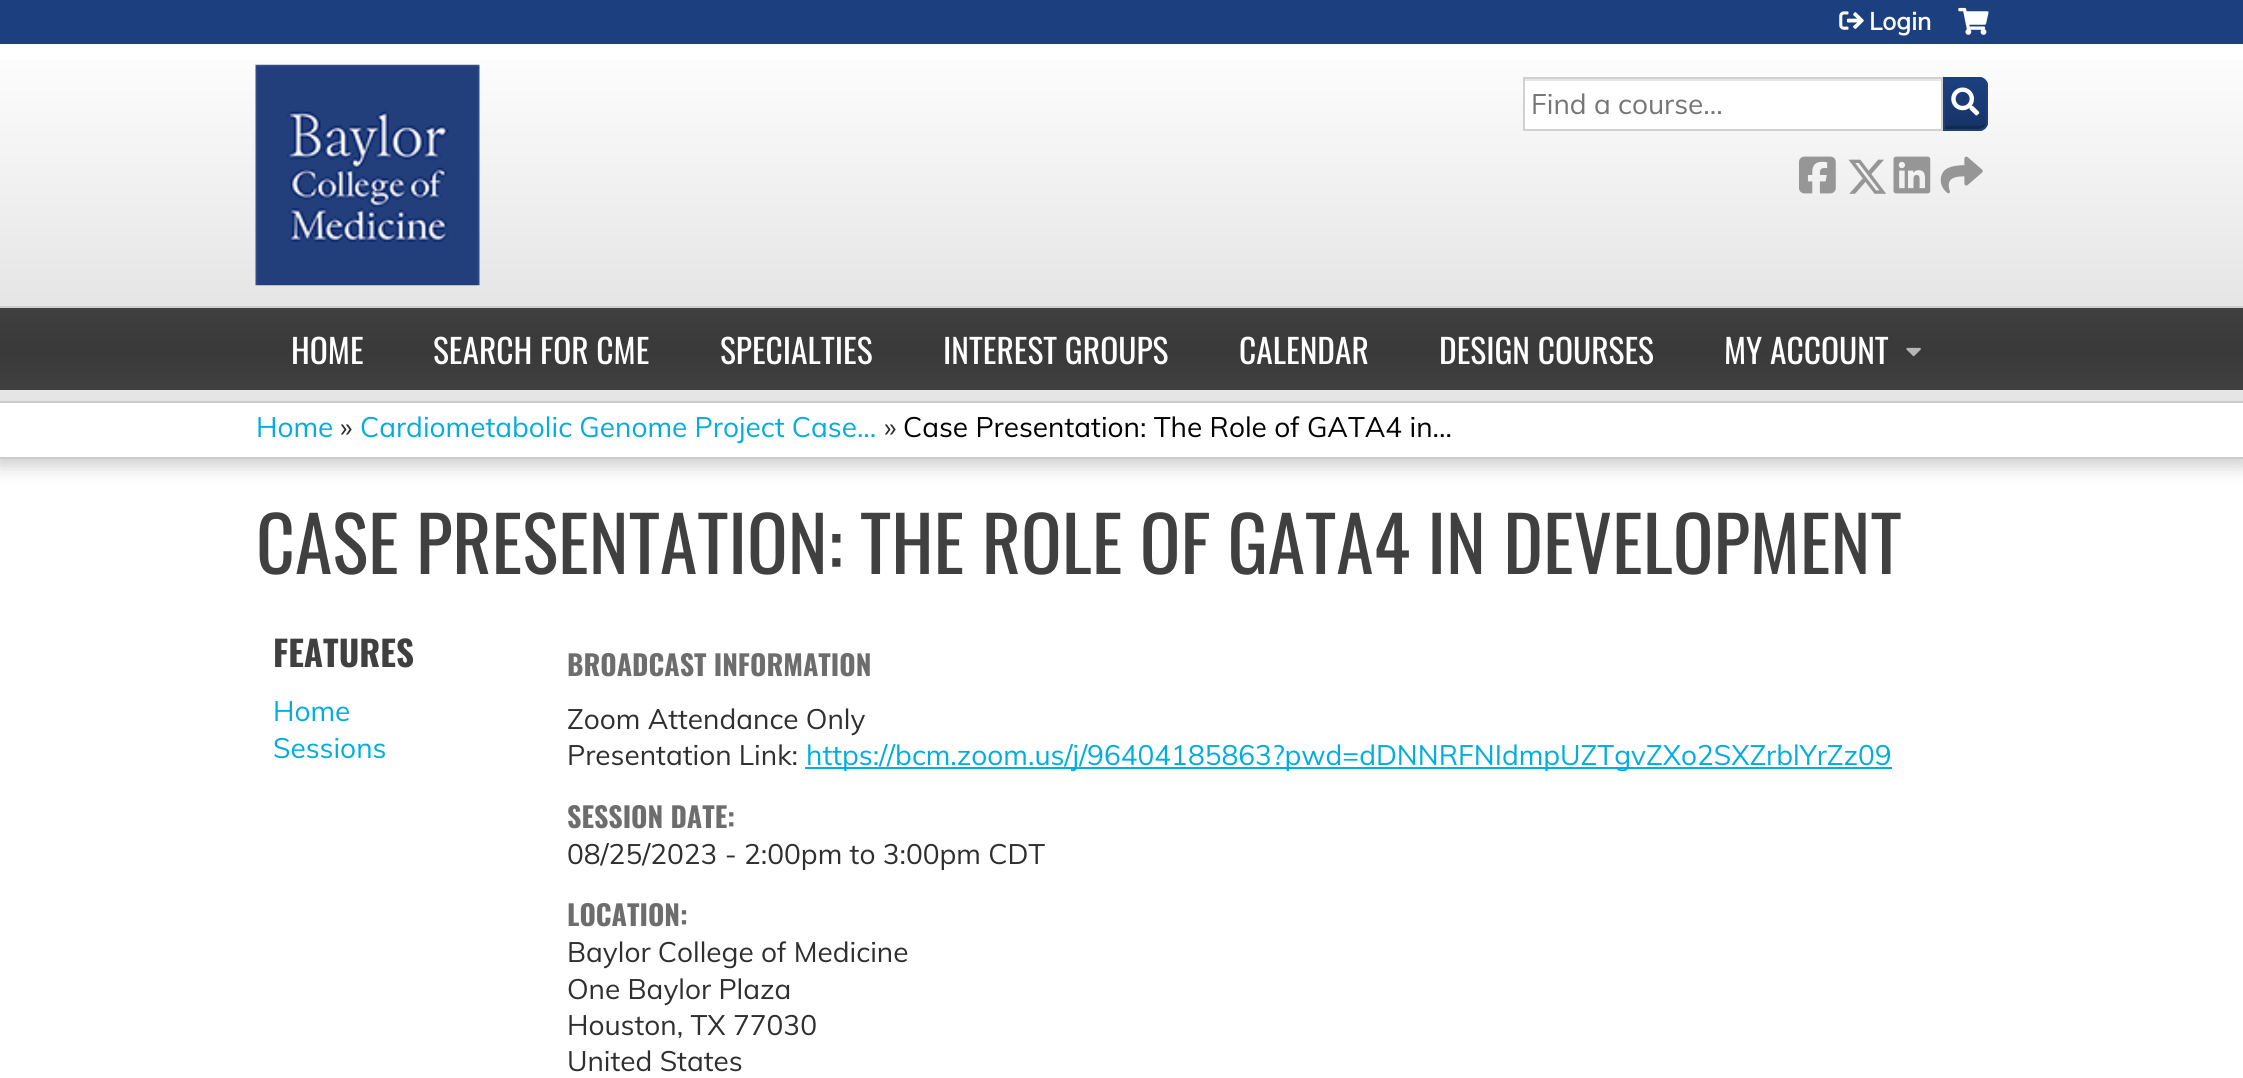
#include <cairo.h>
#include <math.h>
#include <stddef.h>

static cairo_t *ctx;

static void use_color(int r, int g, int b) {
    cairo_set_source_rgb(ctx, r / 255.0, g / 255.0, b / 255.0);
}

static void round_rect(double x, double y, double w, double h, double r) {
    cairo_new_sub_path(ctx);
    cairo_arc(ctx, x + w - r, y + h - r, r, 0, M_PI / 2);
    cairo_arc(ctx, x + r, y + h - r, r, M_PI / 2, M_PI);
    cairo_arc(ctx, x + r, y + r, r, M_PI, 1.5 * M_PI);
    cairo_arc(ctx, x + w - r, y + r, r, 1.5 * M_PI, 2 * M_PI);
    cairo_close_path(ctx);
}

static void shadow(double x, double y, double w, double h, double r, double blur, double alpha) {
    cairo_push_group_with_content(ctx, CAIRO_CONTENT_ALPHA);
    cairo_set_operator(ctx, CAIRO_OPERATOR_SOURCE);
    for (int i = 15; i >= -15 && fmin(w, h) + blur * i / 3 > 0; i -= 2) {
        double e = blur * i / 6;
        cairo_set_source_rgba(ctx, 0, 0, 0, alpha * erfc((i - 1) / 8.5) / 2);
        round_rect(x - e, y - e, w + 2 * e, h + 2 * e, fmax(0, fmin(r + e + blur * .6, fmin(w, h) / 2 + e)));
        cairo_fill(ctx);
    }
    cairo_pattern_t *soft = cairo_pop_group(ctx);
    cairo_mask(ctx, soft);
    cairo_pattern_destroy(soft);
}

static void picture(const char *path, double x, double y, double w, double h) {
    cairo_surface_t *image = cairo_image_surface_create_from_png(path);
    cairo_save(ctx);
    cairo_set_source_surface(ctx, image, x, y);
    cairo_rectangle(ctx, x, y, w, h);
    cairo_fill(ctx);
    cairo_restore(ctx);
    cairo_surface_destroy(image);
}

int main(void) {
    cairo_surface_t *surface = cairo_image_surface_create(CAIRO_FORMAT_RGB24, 2243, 1078);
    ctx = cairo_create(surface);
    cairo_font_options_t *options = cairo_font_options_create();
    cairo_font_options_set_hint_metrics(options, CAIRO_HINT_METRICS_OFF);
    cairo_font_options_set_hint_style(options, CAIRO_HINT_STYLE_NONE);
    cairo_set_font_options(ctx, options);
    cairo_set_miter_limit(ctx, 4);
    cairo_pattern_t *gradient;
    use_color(255, 255, 255);
    cairo_paint(ctx);
    gradient = cairo_pattern_create_linear(1122, 306, 1122, 44);
    cairo_pattern_add_color_stop_rgba(gradient, 0, 0.898, 0.898, 0.898, 1);
    cairo_pattern_add_color_stop_rgba(gradient, 1, 0.996, 0.996, 0.996, 1);
    cairo_set_source(ctx, gradient);
    cairo_pattern_destroy(gradient);
    cairo_rectangle(ctx, 0, 60, 2243, 246);
    cairo_fill(ctx);
    use_color(28, 64, 127);
    cairo_rectangle(ctx, 0, 0, 2243, 44);
    cairo_fill(ctx);
    picture("img1.png", 255, 64, 225, 222);
    picture("img2.png", 1839, 11, 25, 19);
    cairo_select_font_face(ctx, "Muli", CAIRO_FONT_SLANT_NORMAL, CAIRO_FONT_WEIGHT_BOLD);
    cairo_set_font_size(ctx, 24.5);
    use_color(255, 255, 255);
    cairo_move_to(ctx, 1869, 30);
    cairo_show_text(ctx, "Login");
    picture("img3.png", 1958, 7, 31, 28);
    use_color(28, 64, 127);
    cairo_new_path(ctx);
    cairo_move_to(ctx, 1943, 77);
    cairo_line_to(ctx, 1979, 77);
    cairo_curve_to(ctx, 1984, 77, 1988, 81, 1988, 86);
    cairo_line_to(ctx, 1988, 122);
    cairo_curve_to(ctx, 1988, 127, 1984, 131, 1979, 131);
    cairo_line_to(ctx, 1943, 131);
    cairo_close_path(ctx);
    cairo_fill(ctx);
    cairo_save(ctx);
    cairo_new_path(ctx);
    cairo_move_to(ctx, 1943, 77);
    cairo_line_to(ctx, 1979, 77);
    cairo_curve_to(ctx, 1984, 77, 1988, 81, 1988, 86);
    cairo_line_to(ctx, 1988, 122);
    cairo_curve_to(ctx, 1988, 127, 1984, 131, 1979, 131);
    cairo_line_to(ctx, 1943, 131);
    cairo_close_path(ctx);
    cairo_clip(ctx);
    gradient = cairo_pattern_create_linear(1965, 130, 1965, 79);
    cairo_pattern_add_color_stop_rgba(gradient, 0, 0, 0, 0, 0.2);
    cairo_pattern_add_color_stop_rgba(gradient, 1, 0, 0, 0, 0);
    cairo_set_source(ctx, gradient);
    cairo_pattern_destroy(gradient);
    cairo_rectangle(ctx, 1945, 84, 43, 46);
    cairo_fill(ctx);
    cairo_restore(ctx);
    cairo_set_source_rgba(ctx, 0, 0, 0, 0.2);
    cairo_new_path(ctx);
    cairo_move_to(ctx, 1944, 126);
    cairo_line_to(ctx, 1944, 130);
    cairo_line_to(ctx, 1967, 130);
    cairo_curve_to(ctx, 1973, 130, 1986, 132, 1986, 123);
    cairo_curve_to(ctx, 1984, 125, 1982, 126, 1979, 126);
    cairo_close_path(ctx);
    cairo_fill(ctx);
    cairo_new_path(ctx);
    cairo_move_to(ctx, 1944, 78);
    cairo_line_to(ctx, 1979, 78);
    cairo_curve_to(ctx, 1983.5, 78, 1987, 81.5, 1987, 86);
    cairo_line_to(ctx, 1987, 122);
    cairo_curve_to(ctx, 1987, 126.5, 1983.5, 130, 1979, 130);
    cairo_line_to(ctx, 1944, 130);
    cairo_close_path(ctx);
    use_color(28, 64, 127);
    cairo_stroke(ctx);
    use_color(255, 255, 255);
    cairo_rectangle(ctx, 1525, 81, 416, 48);
    cairo_fill(ctx);
    use_color(230, 230, 230);
    cairo_rectangle(ctx, 1524, 79, 417, 2);
    cairo_fill(ctx);
    cairo_rectangle(ctx, 1524, 78, 418, 52);
    use_color(209, 209, 209);
    cairo_stroke(ctx);
    cairo_select_font_face(ctx, "Muli", CAIRO_FONT_SLANT_NORMAL, CAIRO_FONT_WEIGHT_NORMAL);
    cairo_set_font_size(ctx, 28);
    use_color(117, 117, 117);
    cairo_move_to(ctx, 1531, 114);
    cairo_show_text(ctx, "Find a course...");
    picture("img4.png", 1951, 87, 29, 29);
    picture("img5.png", 1799, 156, 37, 38);
    picture("img6.png", 1848, 159, 38, 35);
    picture("img7.png", 1893, 156, 38, 38);
    picture("img8.png", 1940, 156, 43, 38);
    use_color(0, 0, 0);
    shadow(-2, 404, 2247, 62, 0, 9, 0.2);
    gradient = cairo_pattern_create_linear(1122, 308, 1122, 390);
    cairo_pattern_add_color_stop_rgba(gradient, 0, 0.255, 0.251, 0.255, 1);
    cairo_pattern_add_color_stop_rgba(gradient, 0.33, 0.235, 0.231, 0.235, 1);
    cairo_pattern_add_color_stop_rgba(gradient, 0.5, 0.231, 0.227, 0.231, 1);
    cairo_pattern_add_color_stop_rgba(gradient, 0.66, 0.235, 0.231, 0.235, 1);
    cairo_pattern_add_color_stop_rgba(gradient, 1, 0.255, 0.251, 0.255, 1);
    cairo_set_source(ctx, gradient);
    cairo_pattern_destroy(gradient);
    cairo_rectangle(ctx, 0, 308, 2243, 82);
    cairo_fill(ctx);
    use_color(204, 204, 204);
    cairo_rectangle(ctx, 0, 306, 2243, 2);
    cairo_fill(ctx);
    use_color(229, 229, 229);
    cairo_rectangle(ctx, 0, 390, 2243, 11);
    cairo_fill(ctx);
    cairo_select_font_face(ctx, "Oswald", CAIRO_FONT_SLANT_NORMAL, CAIRO_FONT_WEIGHT_NORMAL);
    cairo_set_font_size(ctx, 33.5);
    use_color(255, 255, 255);
    cairo_move_to(ctx, 291, 364);
    cairo_show_text(ctx, "HOME");
    cairo_move_to(ctx, 433, 364);
    cairo_show_text(ctx, "SEARCH FOR CME");
    cairo_move_to(ctx, 720, 364);
    cairo_show_text(ctx, "SPECIALTIES");
    cairo_move_to(ctx, 943, 364);
    cairo_show_text(ctx, "INTEREST GROUPS");
    cairo_move_to(ctx, 1239, 364);
    cairo_show_text(ctx, "CALENDAR");
    cairo_move_to(ctx, 1439, 364);
    cairo_show_text(ctx, "DESIGN COURSES");
    cairo_move_to(ctx, 1724, 364);
    cairo_show_text(ctx, "MY ACCOUNT");
    picture("img9.png", 1906, 347, 15, 10);
    cairo_rectangle(ctx, 0, 403, 2243, 54);
    cairo_fill(ctx);
    use_color(204, 204, 204);
    cairo_rectangle(ctx, 0, 401, 2243, 2);
    cairo_fill(ctx);
    cairo_rectangle(ctx, 0, 457, 2243, 2);
    cairo_fill(ctx);
    cairo_select_font_face(ctx, "Muli", CAIRO_FONT_SLANT_NORMAL, CAIRO_FONT_WEIGHT_NORMAL);
    cairo_set_font_size(ctx, 28);
    use_color(1, 173, 222);
    cairo_move_to(ctx, 256, 437);
    cairo_show_text(ctx, "Home");
    use_color(47, 47, 47);
    cairo_move_to(ctx, 340, 437);
    cairo_show_text(ctx, "»");
    use_color(1, 173, 222);
    cairo_move_to(ctx, 360, 437);
    cairo_show_text(ctx, "Cardiometabolic Genome Project Case...");
    use_color(47, 47, 47);
    cairo_move_to(ctx, 884, 437);
    cairo_show_text(ctx, "»");
    use_color(0, 0, 0);
    cairo_move_to(ctx, 903, 437);
    cairo_show_text(ctx, "Case Presentation: The Role of GATA4 in...");
    cairo_select_font_face(ctx, "Oswald", CAIRO_FONT_SLANT_NORMAL, CAIRO_FONT_WEIGHT_NORMAL);
    cairo_set_font_size(ctx, 75.6);
    use_color(65, 64, 65);
    cairo_move_to(ctx, 256, 574);
    cairo_show_text(ctx, "CASE PRESENTATION: THE ROLE OF GATA4 IN DEVELOPMENT");
    cairo_select_font_face(ctx, "Oswald", CAIRO_FONT_SLANT_NORMAL, CAIRO_FONT_WEIGHT_BOLD);
    cairo_set_font_size(ctx, 35);
    cairo_move_to(ctx, 273, 667);
    cairo_show_text(ctx, "FEATURES");
    cairo_select_font_face(ctx, "Muli", CAIRO_FONT_SLANT_NORMAL, CAIRO_FONT_WEIGHT_NORMAL);
    cairo_set_font_size(ctx, 28);
    use_color(1, 173, 222);
    cairo_move_to(ctx, 273, 721);
    cairo_show_text(ctx, "Home");
    cairo_move_to(ctx, 273, 758);
    cairo_show_text(ctx, "Sessions");
    cairo_select_font_face(ctx, "Oswald", CAIRO_FONT_SLANT_NORMAL, CAIRO_FONT_WEIGHT_BOLD);
    use_color(109, 109, 109);
    cairo_move_to(ctx, 567, 676);
    cairo_show_text(ctx, "BROADCAST INFORMATION");
    cairo_select_font_face(ctx, "Muli", CAIRO_FONT_SLANT_NORMAL, CAIRO_FONT_WEIGHT_NORMAL);
    use_color(47, 47, 47);
    cairo_move_to(ctx, 567, 729);
    cairo_show_text(ctx, "Zoom Attendance Only");
    cairo_move_to(ctx, 567, 765);
    cairo_show_text(ctx, "Presentation Link:");
    use_color(1, 173, 222);
    cairo_rectangle(ctx, 805, 767, 1087, 2);
    cairo_fill(ctx);
    cairo_move_to(ctx, 806, 765);
    cairo_show_text(ctx, "https://bcm.zoom.us/j/96404185863?pwd=dDNNRFNIdmpUZTgvZXo2SXZrblYrZz09");
    cairo_select_font_face(ctx, "Oswald", CAIRO_FONT_SLANT_NORMAL, CAIRO_FONT_WEIGHT_BOLD);
    use_color(109, 109, 109);
    cairo_move_to(ctx, 567, 828);
    cairo_show_text(ctx, "SESSION DATE:");
    cairo_select_font_face(ctx, "Muli", CAIRO_FONT_SLANT_NORMAL, CAIRO_FONT_WEIGHT_NORMAL);
    use_color(47, 47, 47);
    cairo_move_to(ctx, 567, 864);
    cairo_show_text(ctx, "08/25/2023 - 2:00pm to 3:00pm CDT");
    cairo_select_font_face(ctx, "Oswald", CAIRO_FONT_SLANT_NORMAL, CAIRO_FONT_WEIGHT_BOLD);
    use_color(109, 109, 109);
    cairo_move_to(ctx, 567, 926);
    cairo_show_text(ctx, "LOCATION:");
    cairo_select_font_face(ctx, "Muli", CAIRO_FONT_SLANT_NORMAL, CAIRO_FONT_WEIGHT_NORMAL);
    use_color(47, 47, 47);
    cairo_move_to(ctx, 567, 962);
    cairo_show_text(ctx, "Baylor College of Medicine");
    cairo_move_to(ctx, 567, 999);
    cairo_show_text(ctx, "One Baylor Plaza");
    cairo_move_to(ctx, 567, 1035);
    cairo_show_text(ctx, "Houston, TX 77030");
    cairo_move_to(ctx, 567, 1071);
    cairo_show_text(ctx, "United States");
    cairo_surface_write_to_png(surface, "result.png");
    cairo_font_options_destroy(options);
    cairo_destroy(ctx);
    cairo_surface_destroy(surface);
    return 0;
}
